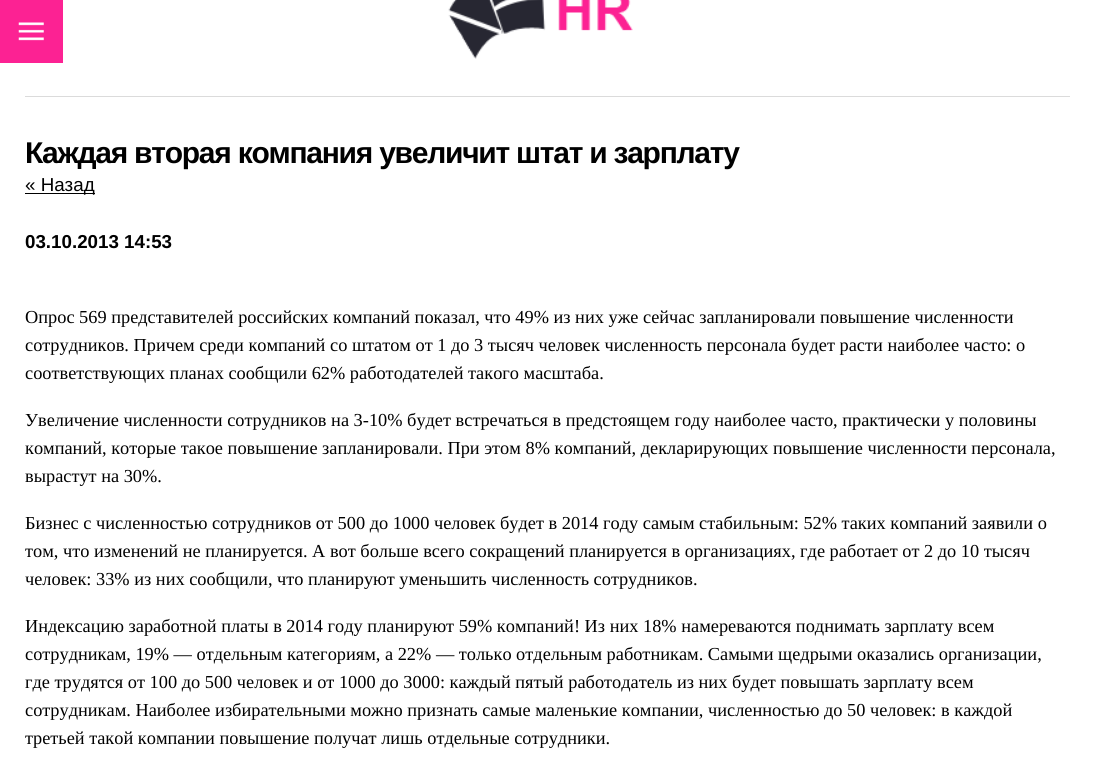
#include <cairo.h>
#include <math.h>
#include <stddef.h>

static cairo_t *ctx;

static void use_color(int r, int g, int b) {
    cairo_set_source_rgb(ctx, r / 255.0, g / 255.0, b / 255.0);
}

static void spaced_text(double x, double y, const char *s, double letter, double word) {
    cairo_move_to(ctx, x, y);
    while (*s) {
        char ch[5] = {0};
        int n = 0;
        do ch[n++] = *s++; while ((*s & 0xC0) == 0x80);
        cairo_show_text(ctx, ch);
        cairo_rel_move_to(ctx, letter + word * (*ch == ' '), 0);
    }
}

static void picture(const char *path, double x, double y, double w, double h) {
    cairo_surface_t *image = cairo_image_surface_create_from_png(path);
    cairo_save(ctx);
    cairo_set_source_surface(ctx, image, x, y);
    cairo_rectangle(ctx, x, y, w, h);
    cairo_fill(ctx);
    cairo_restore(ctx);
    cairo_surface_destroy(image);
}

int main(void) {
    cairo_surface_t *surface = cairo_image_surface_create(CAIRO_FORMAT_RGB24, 1094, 766);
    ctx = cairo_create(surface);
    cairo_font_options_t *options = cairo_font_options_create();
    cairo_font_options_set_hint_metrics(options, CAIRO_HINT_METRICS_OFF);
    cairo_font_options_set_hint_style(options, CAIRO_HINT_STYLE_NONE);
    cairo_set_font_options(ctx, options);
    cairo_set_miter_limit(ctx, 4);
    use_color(255, 255, 255);
    cairo_paint(ctx);
    use_color(252, 34, 147);
    cairo_rectangle(ctx, 0, 0, 63, 63);
    cairo_fill(ctx);
    picture("img1.png", 18, 22, 26, 19);
    use_color(219, 219, 219);
    cairo_rectangle(ctx, 25, 96, 1045, 1);
    cairo_fill(ctx);
    picture("img2.png", 448, 0, 185, 59);
    cairo_select_font_face(ctx, "Liberation Sans", CAIRO_FONT_SLANT_NORMAL, CAIRO_FONT_WEIGHT_BOLD);
    cairo_set_font_size(ctx, 30);
    use_color(0, 0, 0);
    spaced_text(25, 163, "Каждая вторая компания увеличит штат и зарплату", -1.25, 0);
    cairo_rectangle(ctx, 25, 193, 70, 1);
    cairo_fill(ctx);
    cairo_select_font_face(ctx, "Liberation Sans", CAIRO_FONT_SLANT_NORMAL, CAIRO_FONT_WEIGHT_NORMAL);
    cairo_set_font_size(ctx, 18.75);
    cairo_move_to(ctx, 25, 191);
    cairo_show_text(ctx, "« Назад");
    cairo_select_font_face(ctx, "Liberation Sans", CAIRO_FONT_SLANT_NORMAL, CAIRO_FONT_WEIGHT_BOLD);
    cairo_move_to(ctx, 25, 248);
    cairo_show_text(ctx, "03.10.2013 14:53");
    cairo_select_font_face(ctx, "Liberation Serif", CAIRO_FONT_SLANT_NORMAL, CAIRO_FONT_WEIGHT_NORMAL);
    cairo_set_font_size(ctx, 18.33);
    cairo_move_to(ctx, 25, 323);
    cairo_show_text(ctx, "Опрос 569 представителей российских компаний показал, что 49% из них уже сейчас запланировали повышение численности");
    cairo_move_to(ctx, 25, 351);
    cairo_show_text(ctx, "сотрудников. Причем среди компаний со штатом от 1 до 3 тысяч человек численность персонала будет расти наиболее часто: о");
    cairo_move_to(ctx, 25, 379);
    cairo_show_text(ctx, "соответствующих планах сообщили 62% работодателей такого масштаба.");
    cairo_move_to(ctx, 25, 426);
    cairo_show_text(ctx, "Увеличение численности сотрудников на 3-10% будет встречаться в предстоящем году наиболее часто, практически у половины");
    cairo_move_to(ctx, 25, 454);
    cairo_show_text(ctx, "компаний, которые такое повышение запланировали. При этом 8% компаний, декларирующих повышение численности персонала,");
    cairo_move_to(ctx, 25, 482);
    cairo_show_text(ctx, "вырастут на 30%.");
    cairo_move_to(ctx, 25, 529);
    cairo_show_text(ctx, "Бизнес с численностью сотрудников от 500 до 1000 человек будет в 2014 году самым стабильным: 52% таких компаний заявили о");
    cairo_move_to(ctx, 25, 557);
    cairo_show_text(ctx, "том, что изменений не планируется. А вот больше всего сокращений планируется в организациях, где работает от 2 до 10 тысяч");
    cairo_move_to(ctx, 25, 585);
    cairo_show_text(ctx, "человек: 33% из них сообщили, что планируют уменьшить численность сотрудников.");
    cairo_move_to(ctx, 25, 632);
    cairo_show_text(ctx, "Индексацию заработной платы в 2014 году планируют 59% компаний! Из них 18% намереваются поднимать зарплату всем");
    cairo_move_to(ctx, 25, 660);
    cairo_show_text(ctx, "сотрудникам, 19% — отдельным категориям, а 22% — только отдельным работникам. Самыми щедрыми оказались организации,");
    cairo_move_to(ctx, 25, 688);
    cairo_show_text(ctx, "где трудятся от 100 до 500 человек и от 1000 до 3000: каждый пятый работодатель из них будет повышать зарплату всем");
    cairo_move_to(ctx, 25, 716);
    cairo_show_text(ctx, "сотрудникам. Наиболее избирательными можно признать самые маленькие компании, численностью до 50 человек: в каждой");
    cairo_move_to(ctx, 25, 744);
    cairo_show_text(ctx, "третьей такой компании повышение получат лишь отдельные сотрудники.");
    cairo_surface_write_to_png(surface, "result.png");
    cairo_font_options_destroy(options);
    cairo_destroy(ctx);
    cairo_surface_destroy(surface);
    return 0;
}
